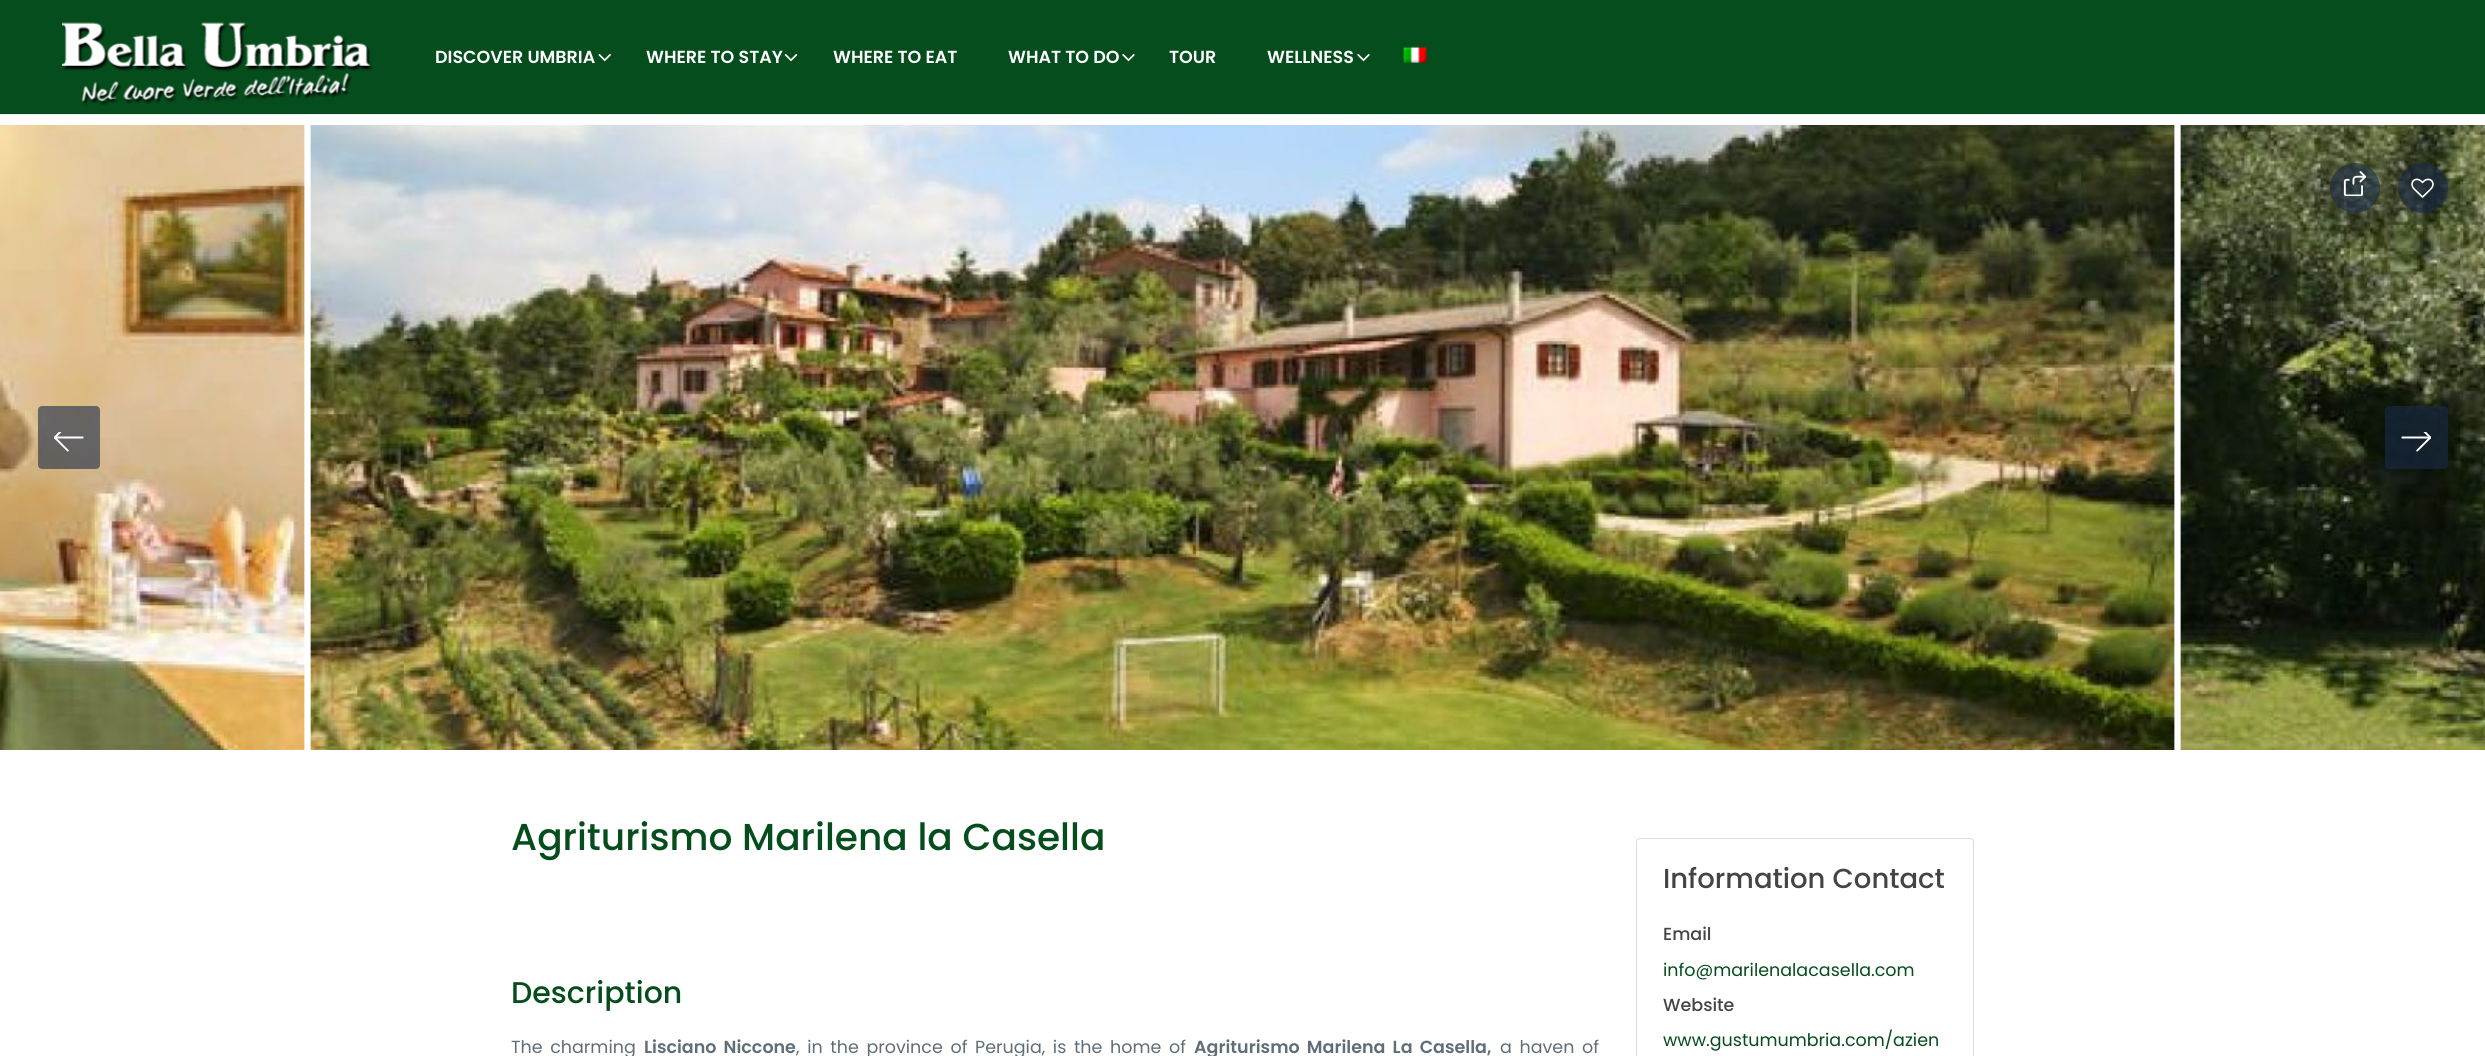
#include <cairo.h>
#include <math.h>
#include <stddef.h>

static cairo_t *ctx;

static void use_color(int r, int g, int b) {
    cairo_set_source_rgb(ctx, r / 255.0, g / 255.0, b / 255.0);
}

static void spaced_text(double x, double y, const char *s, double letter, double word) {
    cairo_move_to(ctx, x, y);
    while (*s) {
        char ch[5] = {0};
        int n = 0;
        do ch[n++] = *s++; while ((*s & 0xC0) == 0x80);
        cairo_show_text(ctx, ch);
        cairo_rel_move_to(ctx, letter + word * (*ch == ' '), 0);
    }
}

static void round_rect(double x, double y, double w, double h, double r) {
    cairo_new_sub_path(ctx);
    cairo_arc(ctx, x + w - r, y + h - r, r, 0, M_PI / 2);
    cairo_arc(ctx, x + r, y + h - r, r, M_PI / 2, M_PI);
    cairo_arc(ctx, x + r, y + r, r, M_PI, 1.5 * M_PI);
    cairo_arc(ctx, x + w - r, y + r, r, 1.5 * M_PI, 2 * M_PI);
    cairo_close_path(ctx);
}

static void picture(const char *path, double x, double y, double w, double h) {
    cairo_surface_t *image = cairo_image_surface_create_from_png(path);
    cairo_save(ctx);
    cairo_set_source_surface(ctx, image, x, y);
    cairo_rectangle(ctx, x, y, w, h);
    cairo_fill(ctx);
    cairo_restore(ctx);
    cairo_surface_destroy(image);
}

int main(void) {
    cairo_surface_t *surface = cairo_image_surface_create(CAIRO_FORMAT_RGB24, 2485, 1056);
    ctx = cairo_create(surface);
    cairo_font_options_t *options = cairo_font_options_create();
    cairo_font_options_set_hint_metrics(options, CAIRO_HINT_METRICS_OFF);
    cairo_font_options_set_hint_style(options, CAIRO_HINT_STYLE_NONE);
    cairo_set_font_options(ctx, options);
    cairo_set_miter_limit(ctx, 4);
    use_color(255, 255, 255);
    cairo_paint(ctx);
    use_color(5, 77, 28);
    cairo_rectangle(ctx, 0, 0, 2485, 114);
    cairo_fill(ctx);
    use_color(234, 238, 243);
    cairo_rectangle(ctx, 0, 114, 2485, 1);
    cairo_fill(ctx);
    picture("img1.png", 62, 22, 311, 84);
    cairo_select_font_face(ctx, "Poppins SemiBold", CAIRO_FONT_SLANT_NORMAL, CAIRO_FONT_WEIGHT_NORMAL);
    cairo_set_font_size(ctx, 17.5);
    use_color(255, 255, 255);
    cairo_move_to(ctx, 435, 63);
    cairo_show_text(ctx, "DISCOVER UMBRIA");
    picture("img2.png", 598, 54, 13, 8);
    cairo_move_to(ctx, 646, 63);
    cairo_show_text(ctx, "WHERE TO STAY");
    picture("img3.png", 784, 54, 14, 8);
    cairo_move_to(ctx, 833, 63);
    cairo_show_text(ctx, "WHERE TO EAT");
    cairo_move_to(ctx, 1008, 63);
    cairo_show_text(ctx, "WHAT TO DO");
    picture("img4.png", 1122, 54, 13, 8);
    cairo_move_to(ctx, 1169, 63);
    cairo_show_text(ctx, "TOUR");
    cairo_move_to(ctx, 1267, 63);
    cairo_show_text(ctx, "WELLNESS");
    picture("img4.png", 1357, 54, 13, 8);
    picture("img5.png", 1403, 46, 24, 17);
    picture("img6.png", 0, 125, 305, 625);
    picture("img7.png", 310, 125, 1865, 625);
    picture("img8.png", 2180, 125, 305, 625);
    cairo_set_source_rgba(ctx, 0.102, 0.169, 0.282, 0.6);
    round_rect(38, 406, 62, 63, 4);
    cairo_fill(ctx);
    picture("img9.png", 54, 432, 30, 20);
    round_rect(2385, 406, 63, 63, 4);
    cairo_fill(ctx);
    picture("img10.png", 2401, 432, 30, 20);
    cairo_arc(ctx, 2355, 188, 25, 0, 2 * M_PI);
    cairo_fill(ctx);
    picture("img11.png", 2343, 171, 24, 25);
    cairo_arc(ctx, 2423, 188, 25, 0, 2 * M_PI);
    cairo_fill(ctx);
    picture("img12.png", 2411, 178, 23, 20);
    cairo_select_font_face(ctx, "Poppins Medium", CAIRO_FONT_SLANT_NORMAL, CAIRO_FONT_WEIGHT_NORMAL);
    cairo_set_font_size(ctx, 37.5);
    use_color(5, 77, 28);
    cairo_move_to(ctx, 511, 850);
    cairo_show_text(ctx, "Agriturismo Marilena la Casella");
    cairo_set_font_size(ctx, 30);
    cairo_move_to(ctx, 511, 1003);
    cairo_show_text(ctx, "Description");
    cairo_select_font_face(ctx, "Poppins", CAIRO_FONT_SLANT_NORMAL, CAIRO_FONT_WEIGHT_NORMAL);
    cairo_set_font_size(ctx, 17.5);
    use_color(94, 109, 119);
    spaced_text(511, 1053, "The charming", 0, 3);
    cairo_select_font_face(ctx, "Poppins SemiBold", CAIRO_FONT_SLANT_NORMAL, CAIRO_FONT_WEIGHT_NORMAL);
    spaced_text(644, 1053, "Lisciano Niccone", 0, 3);
    cairo_select_font_face(ctx, "Poppins", CAIRO_FONT_SLANT_NORMAL, CAIRO_FONT_WEIGHT_NORMAL);
    spaced_text(796, 1053, ", in the province of Perugia, is the home of", 0, 3);
    cairo_select_font_face(ctx, "Poppins SemiBold", CAIRO_FONT_SLANT_NORMAL, CAIRO_FONT_WEIGHT_NORMAL);
    spaced_text(1194, 1053, "Agriturismo Marilena La Casella,", 0, 3);
    cairo_select_font_face(ctx, "Poppins", CAIRO_FONT_SLANT_NORMAL, CAIRO_FONT_WEIGHT_NORMAL);
    spaced_text(1500, 1053, "a haven of", 0, 3);
    round_rect(1636.5, 838.5, 337, 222, 3.5);
    use_color(215, 220, 227);
    cairo_set_line_width(ctx, 1);
    cairo_stroke(ctx);
    cairo_select_font_face(ctx, "Poppins Medium", CAIRO_FONT_SLANT_NORMAL, CAIRO_FONT_WEIGHT_NORMAL);
    cairo_set_font_size(ctx, 27.5);
    use_color(68, 68, 68);
    cairo_move_to(ctx, 1663, 888);
    cairo_show_text(ctx, "Information Contact");
    cairo_set_font_size(ctx, 17.5);
    cairo_move_to(ctx, 1663, 940);
    cairo_show_text(ctx, "Email");
    cairo_select_font_face(ctx, "Poppins", CAIRO_FONT_SLANT_NORMAL, CAIRO_FONT_WEIGHT_NORMAL);
    use_color(5, 77, 28);
    cairo_move_to(ctx, 1663, 976);
    cairo_show_text(ctx, "info@marilenalacasella.com");
    cairo_select_font_face(ctx, "Poppins Medium", CAIRO_FONT_SLANT_NORMAL, CAIRO_FONT_WEIGHT_NORMAL);
    use_color(68, 68, 68);
    cairo_move_to(ctx, 1663, 1011);
    cairo_show_text(ctx, "Website");
    cairo_select_font_face(ctx, "Poppins", CAIRO_FONT_SLANT_NORMAL, CAIRO_FONT_WEIGHT_NORMAL);
    use_color(5, 77, 28);
    cairo_move_to(ctx, 1663, 1046);
    cairo_show_text(ctx, "www.gustumumbria.com/azien");
    cairo_surface_write_to_png(surface, "result.png");
    cairo_font_options_destroy(options);
    cairo_destroy(ctx);
    cairo_surface_destroy(surface);
    return 0;
}
